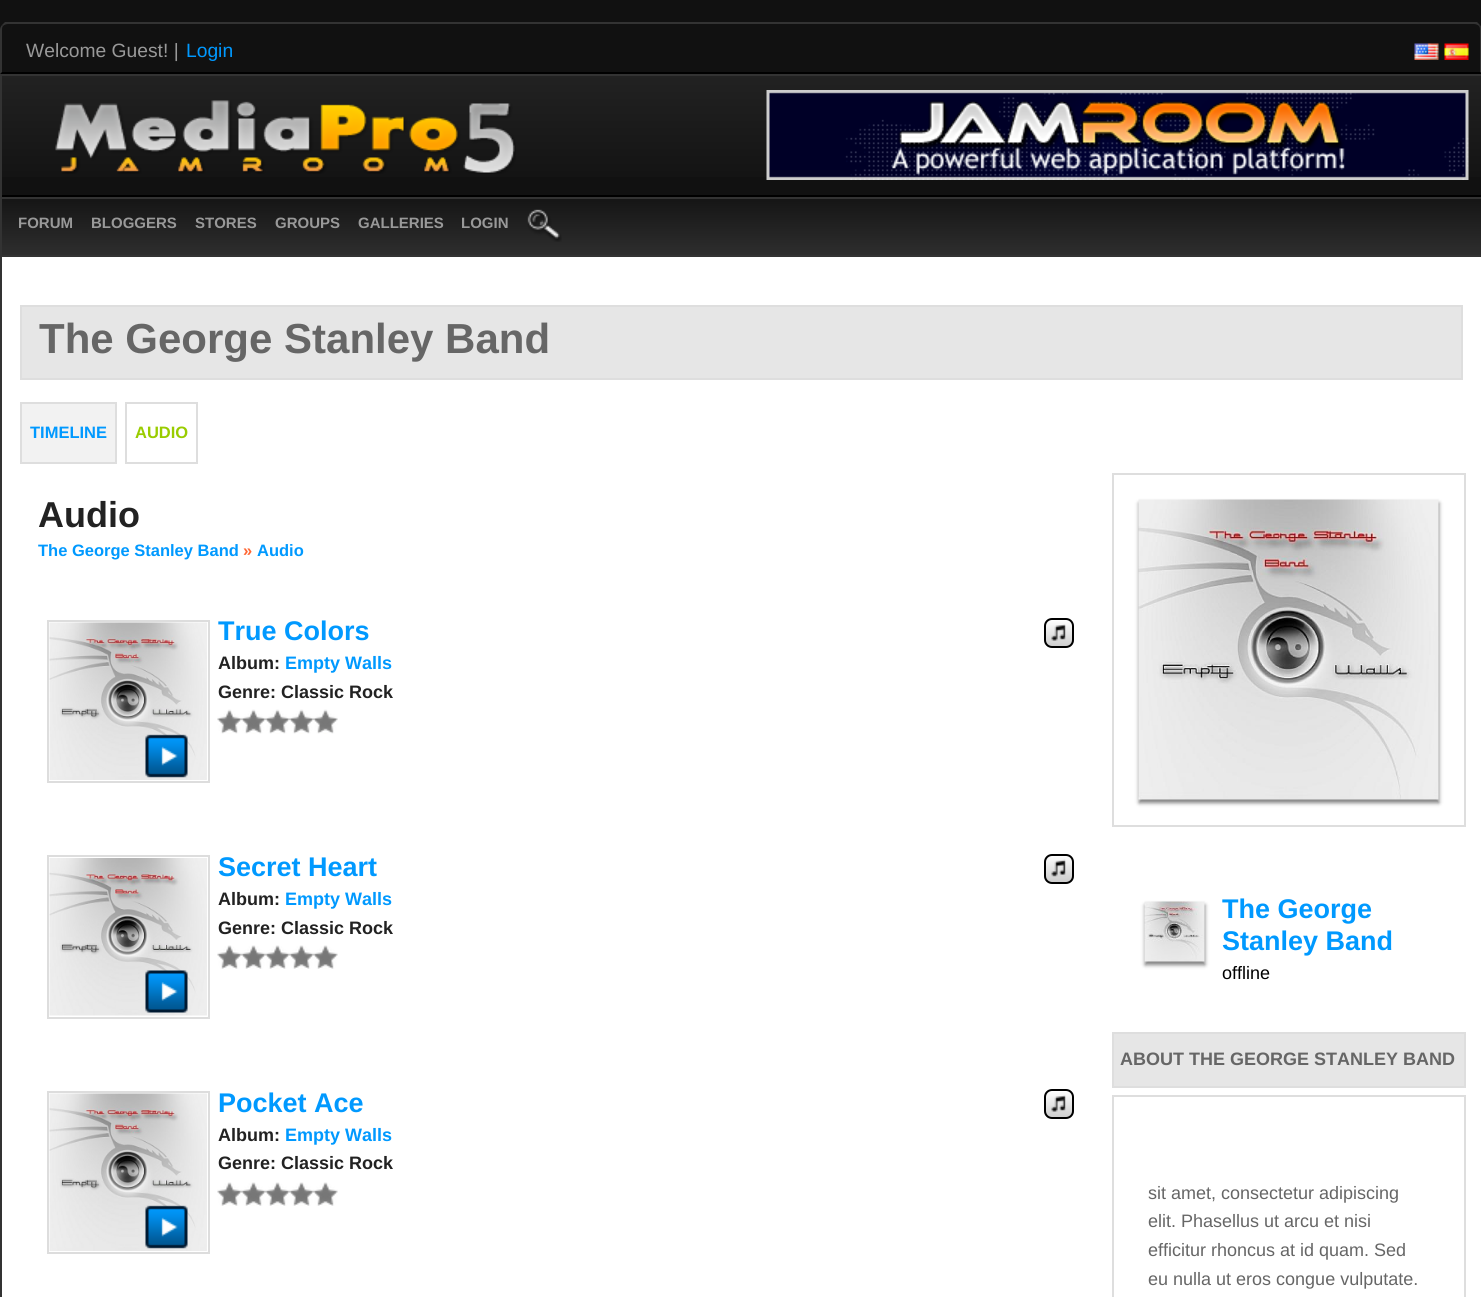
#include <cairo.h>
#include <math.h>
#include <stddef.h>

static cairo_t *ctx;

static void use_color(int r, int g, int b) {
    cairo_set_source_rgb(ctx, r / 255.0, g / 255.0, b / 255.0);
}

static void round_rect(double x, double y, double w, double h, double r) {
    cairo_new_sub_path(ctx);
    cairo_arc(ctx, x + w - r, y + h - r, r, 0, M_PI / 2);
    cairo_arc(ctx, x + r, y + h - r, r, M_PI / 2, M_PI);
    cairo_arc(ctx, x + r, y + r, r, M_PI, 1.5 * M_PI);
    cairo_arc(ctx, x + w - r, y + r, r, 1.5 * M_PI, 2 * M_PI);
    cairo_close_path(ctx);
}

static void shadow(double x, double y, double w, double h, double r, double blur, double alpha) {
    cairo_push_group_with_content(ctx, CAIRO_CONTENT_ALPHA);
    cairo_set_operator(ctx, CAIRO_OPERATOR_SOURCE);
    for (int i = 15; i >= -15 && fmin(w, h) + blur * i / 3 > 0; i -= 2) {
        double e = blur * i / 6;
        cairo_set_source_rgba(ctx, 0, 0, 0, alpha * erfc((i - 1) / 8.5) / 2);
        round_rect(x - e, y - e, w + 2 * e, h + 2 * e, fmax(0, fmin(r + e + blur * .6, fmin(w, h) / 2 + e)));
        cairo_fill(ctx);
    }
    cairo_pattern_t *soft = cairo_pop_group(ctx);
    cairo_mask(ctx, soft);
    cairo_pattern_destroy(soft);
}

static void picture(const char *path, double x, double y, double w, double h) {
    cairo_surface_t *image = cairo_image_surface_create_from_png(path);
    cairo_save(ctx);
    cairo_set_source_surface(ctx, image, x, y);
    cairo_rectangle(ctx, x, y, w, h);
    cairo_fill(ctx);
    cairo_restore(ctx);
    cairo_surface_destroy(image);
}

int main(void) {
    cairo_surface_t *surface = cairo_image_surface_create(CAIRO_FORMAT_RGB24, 1481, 1297);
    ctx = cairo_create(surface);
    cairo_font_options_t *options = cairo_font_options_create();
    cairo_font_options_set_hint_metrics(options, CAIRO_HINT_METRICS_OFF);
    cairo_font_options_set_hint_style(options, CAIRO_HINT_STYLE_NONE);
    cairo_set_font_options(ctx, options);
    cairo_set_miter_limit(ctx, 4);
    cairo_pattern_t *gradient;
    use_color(17, 17, 17);
    cairo_paint(ctx);
    use_color(51, 51, 51);
    cairo_new_path(ctx);
    cairo_move_to(ctx, 8, 24);
    cairo_curve_to(ctx, 6, 24, 4, 25, 3, 26);
    cairo_line_to(ctx, 2, 25);
    cairo_line_to(ctx, 5, 22);
    cairo_line_to(ctx, 1477, 22);
    cairo_line_to(ctx, 1480, 25);
    cairo_line_to(ctx, 1479, 26);
    cairo_curve_to(ctx, 1478, 25, 1476, 24, 1474, 24);
    cairo_close_path(ctx);
    cairo_fill(ctx);
    cairo_new_path(ctx);
    cairo_move_to(ctx, 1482, 74);
    cairo_line_to(ctx, 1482, 30);
    cairo_curve_to(ctx, 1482, 28, 1481, 26, 1480, 25);
    cairo_line_to(ctx, 1479, 26);
    cairo_curve_to(ctx, 1480, 27, 1480, 29, 1480, 30);
    cairo_line_to(ctx, 1480, 72);
    cairo_close_path(ctx);
    cairo_fill(ctx);
    use_color(0, 0, 0);
    cairo_new_path(ctx);
    cairo_move_to(ctx, 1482, 74);
    cairo_line_to(ctx, 0, 74);
    cairo_line_to(ctx, 2, 72);
    cairo_line_to(ctx, 1480, 72);
    cairo_close_path(ctx);
    cairo_fill(ctx);
    use_color(51, 51, 51);
    cairo_new_path(ctx);
    cairo_move_to(ctx, 0, 74);
    cairo_line_to(ctx, 2, 72);
    cairo_line_to(ctx, 2, 30);
    cairo_curve_to(ctx, 2, 29, 2, 27, 3, 26);
    cairo_line_to(ctx, 2, 25);
    cairo_curve_to(ctx, 1, 26, 0, 28, 0, 30);
    cairo_close_path(ctx);
    cairo_fill(ctx);
    cairo_select_font_face(ctx, "Liberation Sans", CAIRO_FONT_SLANT_NORMAL, CAIRO_FONT_WEIGHT_NORMAL);
    cairo_set_font_size(ctx, 19.25);
    use_color(153, 153, 153);
    cairo_move_to(ctx, 26, 57);
    cairo_show_text(ctx, "Welcome Guest! |");
    use_color(0, 153, 255);
    cairo_move_to(ctx, 186, 57);
    cairo_show_text(ctx, "Login");
    picture("img1.png", 1414, 43, 25, 17);
    picture("img2.png", 1444, 43, 25, 17);
    gradient = cairo_pattern_create_linear(741, 75, 741, 195);
    cairo_pattern_add_color_stop_rgba(gradient, 0, 0.133, 0.133, 0.133, 1);
    cairo_pattern_add_color_stop_rgba(gradient, 1, 0.067, 0.067, 0.067, 1);
    cairo_set_source(ctx, gradient);
    cairo_pattern_destroy(gradient);
    cairo_rectangle(ctx, 2, 76, 1479, 101);
    cairo_fill(ctx);
    use_color(51, 51, 51);
    cairo_rectangle(ctx, 0, 74, 1481, 2);
    cairo_fill(ctx);
    use_color(0, 0, 0);
    cairo_rectangle(ctx, 0, 195, 1481, 2);
    cairo_fill(ctx);
    use_color(51, 51, 51);
    cairo_rectangle(ctx, 0, 74, 2, 123);
    cairo_fill(ctx);
    picture("img3.png", 55, 100, 461, 74);
    picture("img4.png", 766, 90, 703, 90);
    gradient = cairo_pattern_create_linear(741, 198, 741, 255);
    cairo_pattern_add_color_stop_rgba(gradient, 0, 0.082, 0.082, 0.082, 1);
    cairo_pattern_add_color_stop_rgba(gradient, 1, 0.18, 0.18, 0.18, 1);
    cairo_set_source(ctx, gradient);
    cairo_pattern_destroy(gradient);
    cairo_rectangle(ctx, 2, 199, 1479, 56);
    cairo_fill(ctx);
    use_color(51, 51, 51);
    cairo_rectangle(ctx, 0, 197, 1481, 2);
    cairo_fill(ctx);
    cairo_rectangle(ctx, 0, 197, 2, 58);
    cairo_fill(ctx);
    cairo_select_font_face(ctx, "Liberation Sans", CAIRO_FONT_SLANT_NORMAL, CAIRO_FONT_WEIGHT_BOLD);
    cairo_set_font_size(ctx, 15);
    use_color(153, 153, 153);
    cairo_move_to(ctx, 18, 228);
    cairo_show_text(ctx, "FORUM");
    cairo_move_to(ctx, 91, 228);
    cairo_show_text(ctx, "BLOGGERS");
    cairo_move_to(ctx, 195, 228);
    cairo_show_text(ctx, "STORES");
    cairo_move_to(ctx, 275, 228);
    cairo_show_text(ctx, "GROUPS");
    cairo_move_to(ctx, 358, 228);
    cairo_show_text(ctx, "GALLERIES");
    cairo_move_to(ctx, 461, 228);
    cairo_show_text(ctx, "LOGIN");
    picture("img5.png", 527, 209, 35, 33);
    cairo_rectangle(ctx, 1, 256, 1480, 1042);
    use_color(51, 51, 51);
    cairo_stroke(ctx);
    use_color(255, 255, 255);
    cairo_rectangle(ctx, 2, 257, 1479, 1040);
    cairo_fill(ctx);
    use_color(230, 230, 230);
    cairo_rectangle(ctx, 21, 306, 1441, 73);
    cairo_fill_preserve(ctx);
    use_color(222, 222, 222);
    cairo_stroke(ctx);
    cairo_set_font_size(ctx, 42);
    use_color(102, 102, 102);
    cairo_move_to(ctx, 39, 353);
    cairo_show_text(ctx, "The George Stanley Band");
    use_color(242, 242, 242);
    cairo_rectangle(ctx, 21, 403, 95, 60);
    cairo_fill_preserve(ctx);
    use_color(222, 222, 222);
    cairo_stroke(ctx);
    cairo_set_font_size(ctx, 16.5);
    use_color(0, 153, 255);
    cairo_move_to(ctx, 30, 438);
    cairo_show_text(ctx, "TIMELINE");
    cairo_rectangle(ctx, 126, 403, 71, 60);
    use_color(222, 222, 222);
    cairo_stroke(ctx);
    use_color(153, 204, 0);
    cairo_move_to(ctx, 135, 438);
    cairo_show_text(ctx, "AUDIO");
    cairo_set_font_size(ctx, 36);
    use_color(34, 34, 34);
    cairo_move_to(ctx, 38, 527);
    cairo_show_text(ctx, "Audio");
    cairo_set_font_size(ctx, 16.5);
    use_color(0, 153, 255);
    cairo_move_to(ctx, 38, 556);
    cairo_show_text(ctx, "The George Stanley Band");
    use_color(255, 102, 51);
    cairo_move_to(ctx, 243, 556);
    cairo_show_text(ctx, "»");
    use_color(0, 153, 255);
    cairo_move_to(ctx, 257, 556);
    cairo_show_text(ctx, "Audio");
    cairo_rectangle(ctx, 48, 621, 161, 161);
    use_color(221, 221, 221);
    cairo_stroke(ctx);
    picture("img6.png", 49, 622, 158, 158);
    picture("img7.png", 145, 734, 43, 44);
    cairo_set_font_size(ctx, 27);
    use_color(0, 153, 255);
    cairo_move_to(ctx, 218, 640);
    cairo_show_text(ctx, "True Colors");
    cairo_set_font_size(ctx, 18);
    use_color(34, 34, 34);
    cairo_move_to(ctx, 218, 669);
    cairo_show_text(ctx, "Album:");
    use_color(0, 153, 255);
    cairo_move_to(ctx, 285, 669);
    cairo_show_text(ctx, "Empty Walls");
    use_color(34, 34, 34);
    cairo_move_to(ctx, 218, 698);
    cairo_show_text(ctx, "Genre: Classic Rock");
    picture("img8.png", 217, 709, 121, 25);
    cairo_save(ctx);
    round_rect(1044, 618, 30, 30, 8);
    cairo_clip(ctx);
    gradient = cairo_pattern_create_linear(1059, 620, 1059, 647);
    cairo_pattern_add_color_stop_rgba(gradient, 0, 1, 1, 1, 1);
    cairo_pattern_add_color_stop_rgba(gradient, 1, 0.8, 0.8, 0.8, 1);
    cairo_set_source(ctx, gradient);
    cairo_pattern_destroy(gradient);
    cairo_rectangle(ctx, 1044, 620, 30, 27);
    cairo_fill(ctx);
    cairo_restore(ctx);
    round_rect(1045, 619, 28, 28, 7);
    use_color(0, 0, 0);
    cairo_stroke(ctx);
    picture("img9.png", 1051, 624, 15, 17);
    cairo_rectangle(ctx, 48, 856, 161, 162);
    use_color(221, 221, 221);
    cairo_stroke(ctx);
    picture("img10.png", 49, 858, 158, 158);
    picture("img11.png", 145, 970, 43, 43);
    cairo_set_font_size(ctx, 27);
    use_color(0, 153, 255);
    cairo_move_to(ctx, 218, 876);
    cairo_show_text(ctx, "Secret Heart");
    cairo_set_font_size(ctx, 18);
    use_color(34, 34, 34);
    cairo_move_to(ctx, 218, 905);
    cairo_show_text(ctx, "Album:");
    use_color(0, 153, 255);
    cairo_move_to(ctx, 285, 905);
    cairo_show_text(ctx, "Empty Walls");
    use_color(34, 34, 34);
    cairo_move_to(ctx, 218, 934);
    cairo_show_text(ctx, "Genre: Classic Rock");
    picture("img12.png", 217, 945, 121, 24);
    cairo_save(ctx);
    round_rect(1044, 854, 30, 30, 8);
    cairo_clip(ctx);
    gradient = cairo_pattern_create_linear(1059, 855, 1059, 882);
    cairo_pattern_add_color_stop_rgba(gradient, 0, 1, 1, 1, 1);
    cairo_pattern_add_color_stop_rgba(gradient, 1, 0.8, 0.8, 0.8, 1);
    cairo_set_source(ctx, gradient);
    cairo_pattern_destroy(gradient);
    cairo_rectangle(ctx, 1044, 855, 30, 27);
    cairo_fill(ctx);
    cairo_restore(ctx);
    round_rect(1045, 855, 28, 28, 7);
    use_color(0, 0, 0);
    cairo_stroke(ctx);
    picture("img13.png", 1051, 859, 15, 18);
    cairo_rectangle(ctx, 48, 1092, 161, 161);
    use_color(221, 221, 221);
    cairo_stroke(ctx);
    picture("img6.png", 49, 1093, 158, 158);
    picture("img7.png", 145, 1205, 43, 44);
    cairo_set_font_size(ctx, 27);
    use_color(0, 153, 255);
    cairo_move_to(ctx, 218, 1112);
    cairo_show_text(ctx, "Pocket Ace");
    cairo_set_font_size(ctx, 18);
    use_color(34, 34, 34);
    cairo_move_to(ctx, 218, 1141);
    cairo_show_text(ctx, "Album:");
    use_color(0, 153, 255);
    cairo_move_to(ctx, 285, 1141);
    cairo_show_text(ctx, "Empty Walls");
    use_color(34, 34, 34);
    cairo_move_to(ctx, 218, 1169);
    cairo_show_text(ctx, "Genre: Classic Rock");
    picture("img14.png", 217, 1182, 121, 24);
    cairo_save(ctx);
    round_rect(1044, 1089, 30, 30, 8);
    cairo_clip(ctx);
    gradient = cairo_pattern_create_linear(1059, 1091, 1059, 1118);
    cairo_pattern_add_color_stop_rgba(gradient, 0, 1, 1, 1, 1);
    cairo_pattern_add_color_stop_rgba(gradient, 1, 0.8, 0.8, 0.8, 1);
    cairo_set_source(ctx, gradient);
    cairo_pattern_destroy(gradient);
    cairo_rectangle(ctx, 1044, 1091, 30, 27);
    cairo_fill(ctx);
    cairo_restore(ctx);
    round_rect(1045, 1090, 28, 28, 7);
    use_color(0, 0, 0);
    cairo_stroke(ctx);
    picture("img9.png", 1051, 1095, 15, 17);
    cairo_rectangle(ctx, 1113, 474, 352, 352);
    use_color(222, 222, 222);
    cairo_stroke(ctx);
    use_color(0, 0, 0);
    shadow(1139, 503, 300, 300, 0, 2, 0.5);
    picture("img15.png", 1138, 499, 301, 301);
    shadow(1145, 905, 60, 60, 0, 2, 0.5);
    picture("img16.png", 1144, 901, 61, 61);
    cairo_set_font_size(ctx, 27);
    use_color(0, 153, 255);
    cairo_move_to(ctx, 1222, 918);
    cairo_show_text(ctx, "The George");
    cairo_move_to(ctx, 1222, 950);
    cairo_show_text(ctx, "Stanley Band");
    cairo_select_font_face(ctx, "Liberation Sans", CAIRO_FONT_SLANT_NORMAL, CAIRO_FONT_WEIGHT_NORMAL);
    cairo_set_font_size(ctx, 18);
    use_color(0, 0, 0);
    cairo_move_to(ctx, 1222, 979);
    cairo_show_text(ctx, "offline");
    use_color(230, 230, 230);
    cairo_rectangle(ctx, 1113, 1033, 352, 54);
    cairo_fill_preserve(ctx);
    use_color(222, 222, 222);
    cairo_stroke(ctx);
    cairo_select_font_face(ctx, "Liberation Sans", CAIRO_FONT_SLANT_NORMAL, CAIRO_FONT_WEIGHT_BOLD);
    use_color(102, 102, 102);
    cairo_move_to(ctx, 1120, 1065);
    cairo_show_text(ctx, "ABOUT THE GEORGE STANLEY BAND");
    cairo_rectangle(ctx, 1113, 1096, 352, 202);
    use_color(222, 222, 222);
    cairo_stroke(ctx);
    cairo_select_font_face(ctx, "Liberation Sans", CAIRO_FONT_SLANT_NORMAL, CAIRO_FONT_WEIGHT_NORMAL);
    use_color(102, 102, 102);
    cairo_move_to(ctx, 1148, 1199);
    cairo_show_text(ctx, "sit amet, consectetur adipiscing");
    cairo_move_to(ctx, 1148, 1227);
    cairo_show_text(ctx, "elit. Phasellus ut arcu et nisi");
    cairo_move_to(ctx, 1148, 1256);
    cairo_show_text(ctx, "efficitur rhoncus at id quam. Sed");
    cairo_move_to(ctx, 1148, 1285);
    cairo_show_text(ctx, "eu nulla ut eros congue vulputate.");
    cairo_surface_write_to_png(surface, "result.png");
    cairo_font_options_destroy(options);
    cairo_destroy(ctx);
    cairo_surface_destroy(surface);
    return 0;
}
